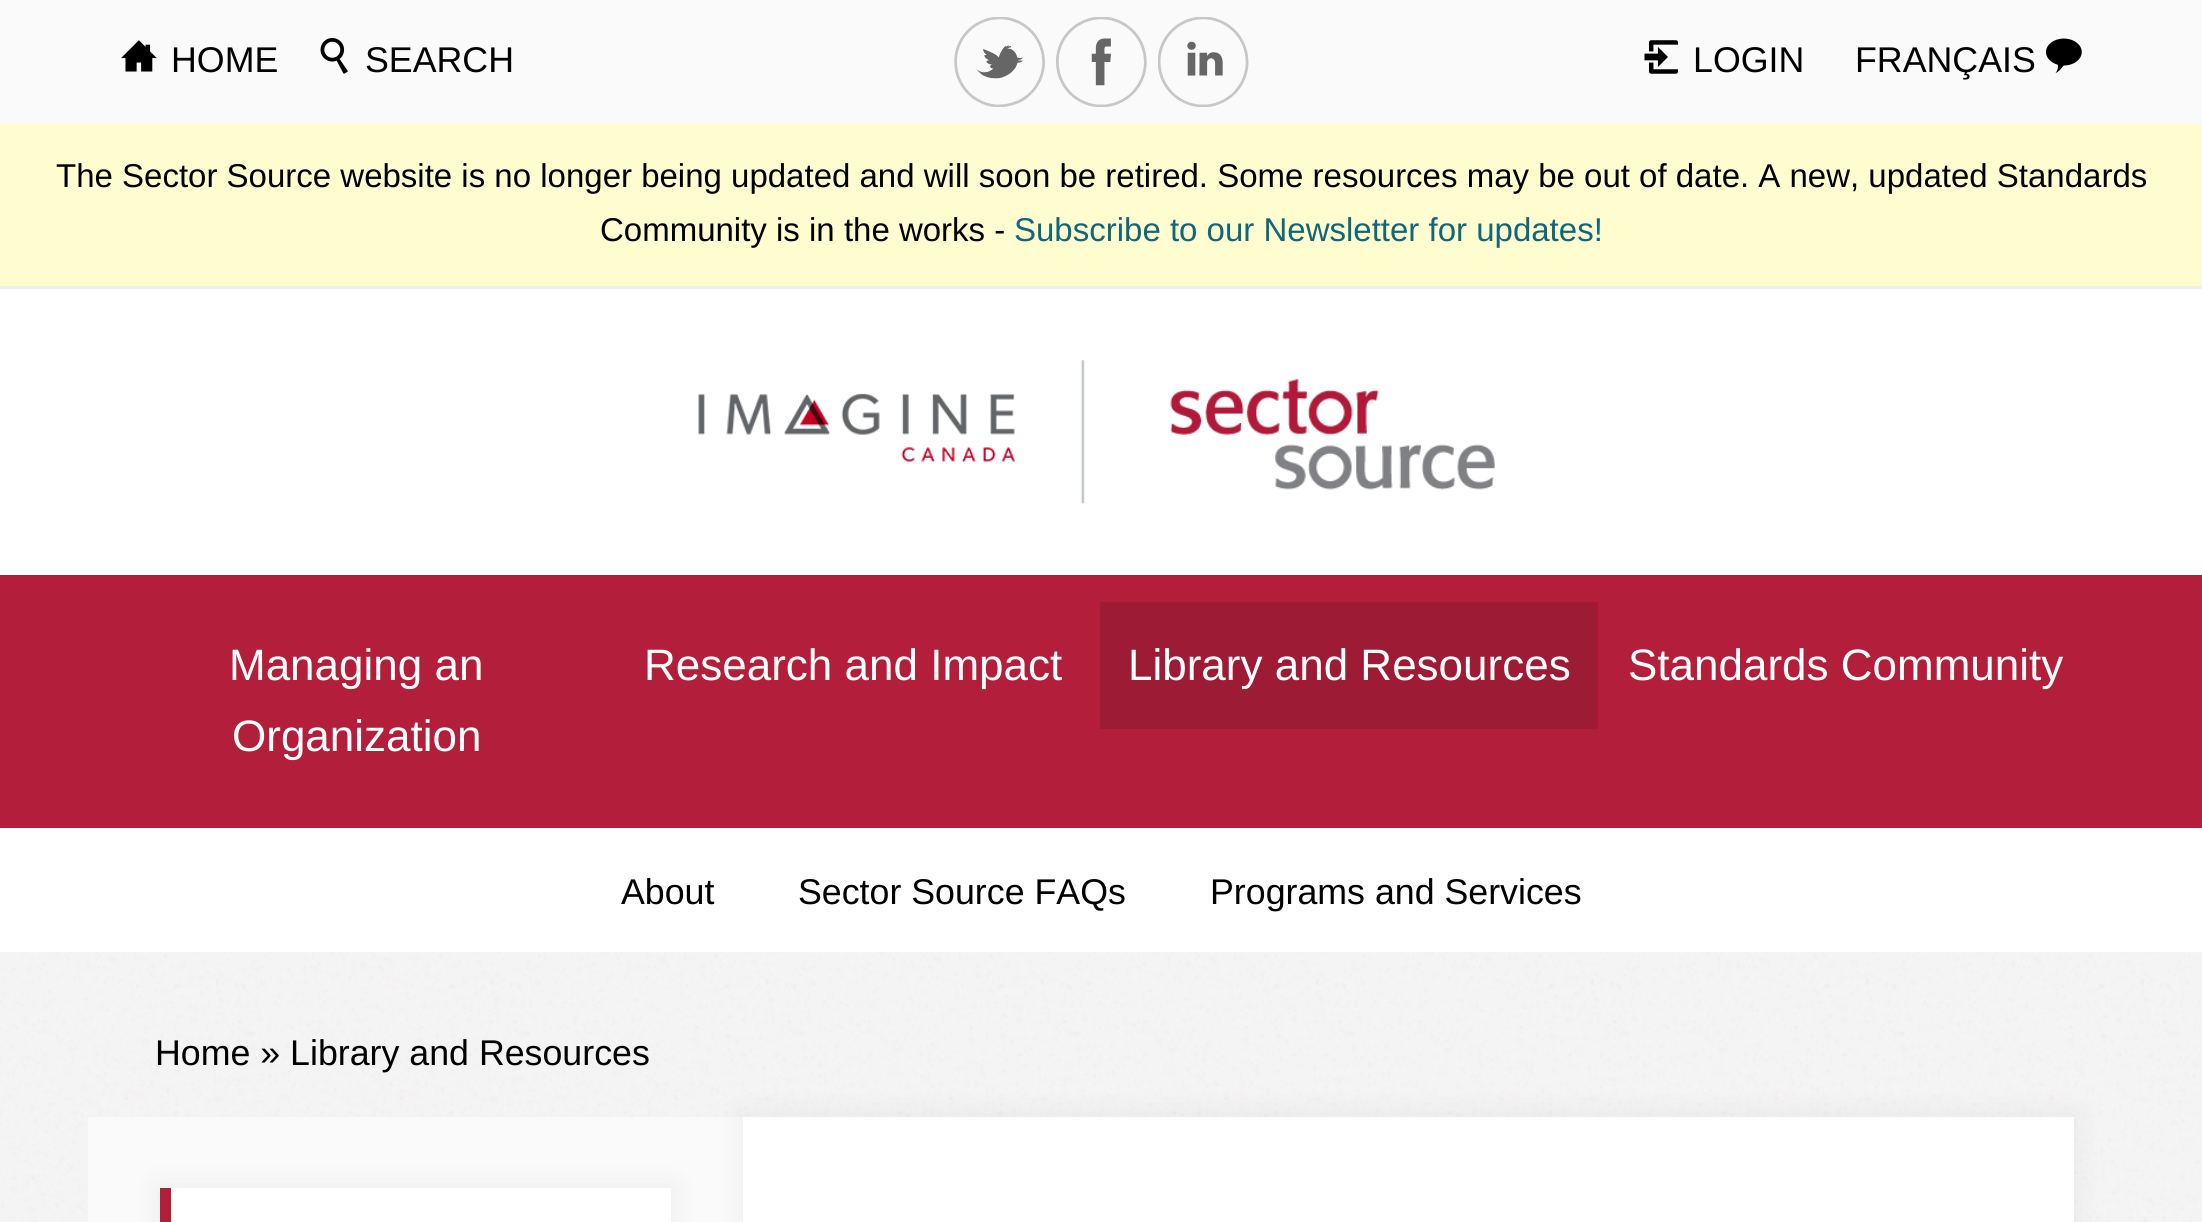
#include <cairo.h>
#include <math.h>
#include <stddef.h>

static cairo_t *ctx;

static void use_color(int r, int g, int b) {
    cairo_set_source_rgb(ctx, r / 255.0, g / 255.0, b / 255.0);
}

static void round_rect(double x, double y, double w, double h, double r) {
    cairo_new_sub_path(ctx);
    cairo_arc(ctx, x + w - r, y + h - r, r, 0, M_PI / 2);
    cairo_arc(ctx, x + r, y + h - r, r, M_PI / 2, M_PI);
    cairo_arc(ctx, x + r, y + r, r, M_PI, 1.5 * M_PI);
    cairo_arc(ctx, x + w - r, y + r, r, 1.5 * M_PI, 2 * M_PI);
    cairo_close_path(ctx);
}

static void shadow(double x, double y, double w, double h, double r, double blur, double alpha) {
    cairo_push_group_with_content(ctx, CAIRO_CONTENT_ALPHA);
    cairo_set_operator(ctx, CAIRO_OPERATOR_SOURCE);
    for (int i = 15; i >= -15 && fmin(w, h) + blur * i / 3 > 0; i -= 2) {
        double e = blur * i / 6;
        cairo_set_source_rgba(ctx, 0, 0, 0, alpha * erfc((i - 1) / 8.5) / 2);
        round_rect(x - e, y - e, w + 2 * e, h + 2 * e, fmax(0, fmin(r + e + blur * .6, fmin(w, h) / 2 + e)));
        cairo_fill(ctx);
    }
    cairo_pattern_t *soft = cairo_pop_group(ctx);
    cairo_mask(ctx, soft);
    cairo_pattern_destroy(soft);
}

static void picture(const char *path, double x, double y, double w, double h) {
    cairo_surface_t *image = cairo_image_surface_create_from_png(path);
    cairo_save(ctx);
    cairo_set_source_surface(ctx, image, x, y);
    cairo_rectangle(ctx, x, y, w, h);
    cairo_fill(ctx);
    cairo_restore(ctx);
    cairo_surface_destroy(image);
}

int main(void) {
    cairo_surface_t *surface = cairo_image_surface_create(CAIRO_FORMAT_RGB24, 2202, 1222);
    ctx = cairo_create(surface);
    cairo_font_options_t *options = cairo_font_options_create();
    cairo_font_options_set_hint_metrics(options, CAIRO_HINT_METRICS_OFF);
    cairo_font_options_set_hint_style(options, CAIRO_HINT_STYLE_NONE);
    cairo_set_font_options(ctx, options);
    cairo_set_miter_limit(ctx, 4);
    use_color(255, 255, 255);
    cairo_paint(ctx);
    use_color(250, 250, 250);
    cairo_rectangle(ctx, 0, 0, 2202, 124);
    cairo_fill(ctx);
    use_color(238, 238, 238);
    cairo_rectangle(ctx, 0, 286, 2202, 3);
    cairo_fill(ctx);
    picture("img1.png", 121, 40, 36, 32);
    cairo_select_font_face(ctx, "Liberation Sans", CAIRO_FONT_SLANT_NORMAL, CAIRO_FONT_WEIGHT_NORMAL);
    cairo_set_font_size(ctx, 35.75);
    use_color(0, 0, 0);
    cairo_move_to(ctx, 171, 72);
    cairo_show_text(ctx, "HOME");
    picture("img2.png", 320, 38, 28, 36);
    cairo_move_to(ctx, 365, 72);
    cairo_show_text(ctx, "SEARCH");
    picture("img3.png", 954, 17, 91, 90);
    picture("img4.png", 1056, 17, 91, 90);
    picture("img5.png", 1158, 17, 91, 90);
    picture("img6.png", 1644, 40, 35, 34);
    cairo_move_to(ctx, 1693, 72);
    cairo_show_text(ctx, "LOGIN");
    cairo_move_to(ctx, 1855, 72);
    cairo_show_text(ctx, "FRANÇAIS");
    picture("img7.png", 2046, 38, 36, 35);
    use_color(255, 252, 207);
    cairo_rectangle(ctx, 0, 124, 2202, 162);
    cairo_fill(ctx);
    cairo_set_font_size(ctx, 33);
    use_color(0, 0, 0);
    cairo_move_to(ctx, 56, 187);
    cairo_show_text(ctx, "The Sector Source website is no longer being updated and will soon be retired. Some resources may be out of date. A new, updated Standards");
    cairo_move_to(ctx, 600, 241);
    cairo_show_text(ctx, "Community is in the works -");
    use_color(14, 103, 123);
    cairo_move_to(ctx, 1014, 241);
    cairo_show_text(ctx, "Subscribe to our Newsletter for updates!");
    picture("img8.png", 698, 360, 387, 144);
    picture("img9.png", 1170, 379, 325, 111);
    use_color(179, 30, 59);
    cairo_rectangle(ctx, 0, 575, 2202, 253);
    cairo_fill(ctx);
    cairo_set_font_size(ctx, 44);
    use_color(255, 255, 255);
    cairo_move_to(ctx, 229, 680);
    cairo_show_text(ctx, "Managing an");
    cairo_move_to(ctx, 232, 751);
    cairo_show_text(ctx, "Organization");
    cairo_move_to(ctx, 644, 680);
    cairo_show_text(ctx, "Research and Impact");
    use_color(157, 27, 53);
    cairo_rectangle(ctx, 1100, 602, 498, 127);
    cairo_fill(ctx);
    use_color(255, 255, 255);
    cairo_move_to(ctx, 1128, 680);
    cairo_show_text(ctx, "Library and Resources");
    cairo_move_to(ctx, 1628, 680);
    cairo_show_text(ctx, "Standards Community");
    cairo_set_font_size(ctx, 35.75);
    use_color(0, 0, 0);
    cairo_move_to(ctx, 621, 904);
    cairo_show_text(ctx, "About");
    cairo_move_to(ctx, 798, 904);
    cairo_show_text(ctx, "Sector Source FAQs");
    cairo_move_to(ctx, 1210, 904);
    cairo_show_text(ctx, "Programs and Services");
    use_color(245, 244, 244);
    cairo_rectangle(ctx, 0, 952, 2202, 270);
    cairo_fill(ctx);
    picture("img10.png", 0, 952, 2202, 270);
    use_color(0, 0, 0);
    cairo_move_to(ctx, 155, 1065);
    cairo_show_text(ctx, "Home » Library and Resources");
    use_color(250, 250, 250);
    cairo_rectangle(ctx, 88, 1117, 655, 105);
    cairo_fill(ctx);
    use_color(0, 0, 0);
    shadow(157, 1185, 517, 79, 0, 14, 0.05);
    use_color(255, 255, 255);
    cairo_rectangle(ctx, 171, 1188, 500, 34);
    cairo_fill(ctx);
    use_color(179, 30, 59);
    cairo_rectangle(ctx, 160, 1188, 11, 34);
    cairo_fill(ctx);
    use_color(0, 0, 0);
    shadow(740, 1114, 1336, 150, 0, 14, 0.05);
    use_color(255, 255, 255);
    cairo_rectangle(ctx, 743, 1117, 1331, 105);
    cairo_fill(ctx);
    cairo_surface_write_to_png(surface, "result.png");
    cairo_font_options_destroy(options);
    cairo_destroy(ctx);
    cairo_surface_destroy(surface);
    return 0;
}
